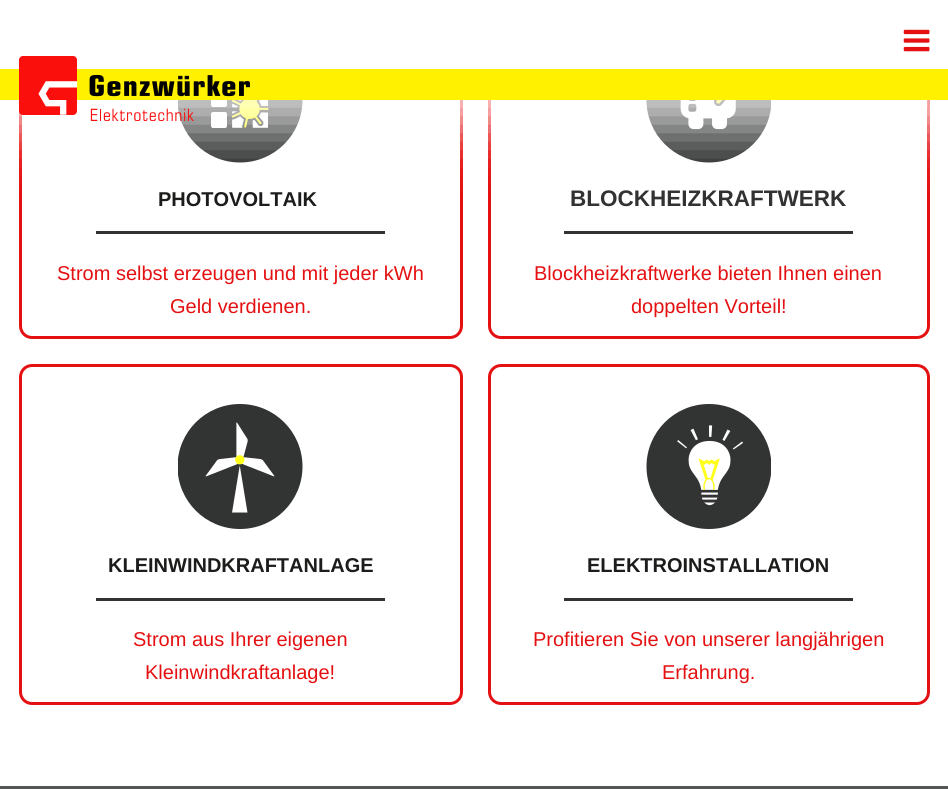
#include <cairo.h>
#include <math.h>
#include <stddef.h>

static cairo_t *ctx;

static void use_color(int r, int g, int b) {
    cairo_set_source_rgb(ctx, r / 255.0, g / 255.0, b / 255.0);
}

static void round_rect(double x, double y, double w, double h, double r) {
    cairo_new_sub_path(ctx);
    cairo_arc(ctx, x + w - r, y + h - r, r, 0, M_PI / 2);
    cairo_arc(ctx, x + r, y + h - r, r, M_PI / 2, M_PI);
    cairo_arc(ctx, x + r, y + r, r, M_PI, 1.5 * M_PI);
    cairo_arc(ctx, x + w - r, y + r, r, 1.5 * M_PI, 2 * M_PI);
    cairo_close_path(ctx);
}

static void shadow(double x, double y, double w, double h, double r, double blur, double alpha) {
    cairo_push_group_with_content(ctx, CAIRO_CONTENT_ALPHA);
    cairo_set_operator(ctx, CAIRO_OPERATOR_SOURCE);
    for (int i = 15; i >= -15 && fmin(w, h) + blur * i / 3 > 0; i -= 2) {
        double e = blur * i / 6;
        cairo_set_source_rgba(ctx, 0, 0, 0, alpha * erfc((i - 1) / 8.5) / 2);
        round_rect(x - e, y - e, w + 2 * e, h + 2 * e, fmax(0, fmin(r + e + blur * .6, fmin(w, h) / 2 + e)));
        cairo_fill(ctx);
    }
    cairo_pattern_t *soft = cairo_pop_group(ctx);
    cairo_mask(ctx, soft);
    cairo_pattern_destroy(soft);
}

static void picture(const char *path, double x, double y, double w, double h) {
    cairo_surface_t *image = cairo_image_surface_create_from_png(path);
    cairo_save(ctx);
    cairo_set_source_surface(ctx, image, x, y);
    cairo_rectangle(ctx, x, y, w, h);
    cairo_fill(ctx);
    cairo_restore(ctx);
    cairo_surface_destroy(image);
}

int main(void) {
    cairo_surface_t *surface = cairo_image_surface_create(CAIRO_FORMAT_RGB24, 948, 789);
    ctx = cairo_create(surface);
    cairo_font_options_t *options = cairo_font_options_create();
    cairo_font_options_set_hint_metrics(options, CAIRO_HINT_METRICS_OFF);
    cairo_font_options_set_hint_style(options, CAIRO_HINT_STYLE_NONE);
    cairo_set_font_options(ctx, options);
    cairo_set_miter_limit(ctx, 4);
    use_color(255, 255, 255);
    cairo_paint(ctx);
    round_rect(20.5, -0.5, 441, 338, 11.5);
    use_color(229, 16, 17);
    cairo_set_line_width(ctx, 3);
    cairo_stroke(ctx);
    picture("img3.png", 178, 100, 125, 63);
    round_rect(489.5, -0.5, 439, 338, 11.5);
    cairo_stroke(ctx);
    picture("img4.png", 646, 100, 125, 63);
    use_color(255, 255, 255);
    shadow(0, 29, 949, 100, 0, 25.5, 0.8);
    use_color(255, 255, 255);
    cairo_rectangle(ctx, 19, 0, 911, 69);
    cairo_fill(ctx);
    use_color(255, 241, 0);
    cairo_rectangle(ctx, 0, 69, 948, 31);
    cairo_fill(ctx);
    picture("img1.png", 903, 29, 27, 23);
    picture("img2.png", 19, 56, 231, 65);
    cairo_select_font_face(ctx, "Liberation Sans", CAIRO_FONT_SLANT_NORMAL, CAIRO_FONT_WEIGHT_BOLD);
    cairo_set_font_size(ctx, 20);
    use_color(28, 28, 27);
    cairo_move_to(ctx, 158, 206);
    cairo_show_text(ctx, "PHOTOVOLTAIK");
    use_color(50, 50, 50);
    cairo_rectangle(ctx, 96, 231, 289, 3);
    cairo_fill(ctx);
    cairo_select_font_face(ctx, "Liberation Sans", CAIRO_FONT_SLANT_NORMAL, CAIRO_FONT_WEIGHT_NORMAL);
    use_color(229, 16, 17);
    cairo_move_to(ctx, 57, 280);
    cairo_show_text(ctx, "Strom selbst erzeugen und mit jeder kWh");
    cairo_move_to(ctx, 170, 313);
    cairo_show_text(ctx, "Geld verdienen.");
    cairo_select_font_face(ctx, "Liberation Sans", CAIRO_FONT_SLANT_NORMAL, CAIRO_FONT_WEIGHT_BOLD);
    cairo_set_font_size(ctx, 22.5);
    use_color(50, 50, 50);
    cairo_move_to(ctx, 570, 206);
    cairo_show_text(ctx, "BLOCKHEIZKRAFTWERK");
    cairo_rectangle(ctx, 564, 231, 289, 3);
    cairo_fill(ctx);
    cairo_select_font_face(ctx, "Liberation Sans", CAIRO_FONT_SLANT_NORMAL, CAIRO_FONT_WEIGHT_NORMAL);
    cairo_set_font_size(ctx, 20);
    use_color(229, 16, 17);
    cairo_move_to(ctx, 534, 280);
    cairo_show_text(ctx, "Blockheizkraftwerke bieten Ihnen einen");
    cairo_move_to(ctx, 631, 313);
    cairo_show_text(ctx, "doppelten Vorteil!");
    round_rect(20.5, 365.5, 441, 338, 11.5);
    cairo_stroke(ctx);
    picture("img5.png", 178, 404, 125, 125);
    cairo_select_font_face(ctx, "Liberation Sans", CAIRO_FONT_SLANT_NORMAL, CAIRO_FONT_WEIGHT_BOLD);
    use_color(28, 28, 27);
    cairo_move_to(ctx, 108, 572);
    cairo_show_text(ctx, "KLEINWINDKRAFTANLAGE");
    use_color(50, 50, 50);
    cairo_rectangle(ctx, 96, 598, 289, 3);
    cairo_fill(ctx);
    cairo_select_font_face(ctx, "Liberation Sans", CAIRO_FONT_SLANT_NORMAL, CAIRO_FONT_WEIGHT_NORMAL);
    use_color(229, 16, 17);
    cairo_move_to(ctx, 133, 646);
    cairo_show_text(ctx, "Strom aus Ihrer eigenen");
    cairo_move_to(ctx, 145, 679);
    cairo_show_text(ctx, "Kleinwindkraftanlage!");
    round_rect(489.5, 365.5, 439, 338, 11.5);
    cairo_stroke(ctx);
    picture("img6.png", 646, 404, 125, 125);
    cairo_select_font_face(ctx, "Liberation Sans", CAIRO_FONT_SLANT_NORMAL, CAIRO_FONT_WEIGHT_BOLD);
    use_color(28, 28, 27);
    cairo_move_to(ctx, 587, 572);
    cairo_show_text(ctx, "ELEKTROINSTALLATION");
    use_color(50, 50, 50);
    cairo_rectangle(ctx, 564, 598, 289, 3);
    cairo_fill(ctx);
    cairo_select_font_face(ctx, "Liberation Sans", CAIRO_FONT_SLANT_NORMAL, CAIRO_FONT_WEIGHT_NORMAL);
    use_color(229, 16, 17);
    cairo_move_to(ctx, 533, 646);
    cairo_show_text(ctx, "Profitieren Sie von unserer langjährigen");
    cairo_move_to(ctx, 662, 679);
    cairo_show_text(ctx, "Erfahrung.");
    use_color(85, 86, 86);
    cairo_rectangle(ctx, 0, 786, 948, 3);
    cairo_fill(ctx);
    cairo_surface_write_to_png(surface, "result.png");
    cairo_font_options_destroy(options);
    cairo_destroy(ctx);
    cairo_surface_destroy(surface);
    return 0;
}
